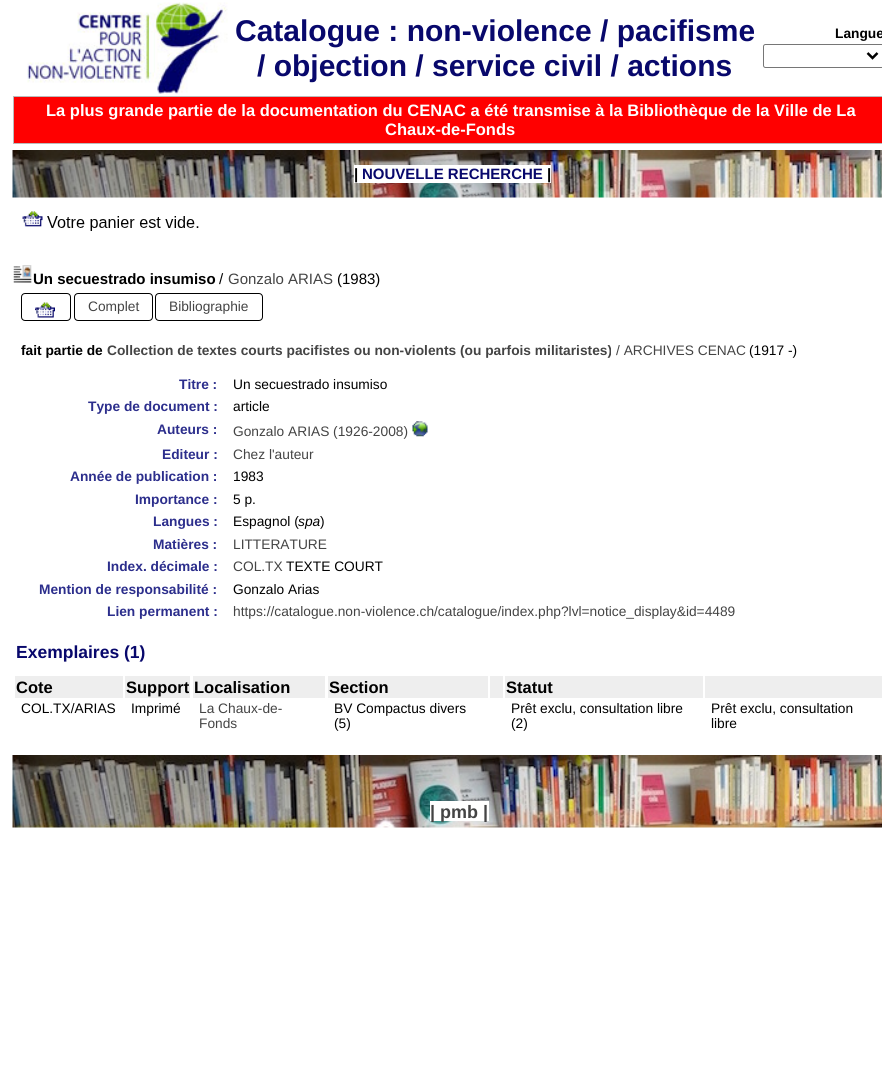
#include <cairo.h>
#include <math.h>
#include <stddef.h>

static cairo_t *ctx;

static void use_color(int r, int g, int b) {
    cairo_set_source_rgb(ctx, r / 255.0, g / 255.0, b / 255.0);
}

static void round_rect(double x, double y, double w, double h, double r) {
    cairo_new_sub_path(ctx);
    cairo_arc(ctx, x + w - r, y + h - r, r, 0, M_PI / 2);
    cairo_arc(ctx, x + r, y + h - r, r, M_PI / 2, M_PI);
    cairo_arc(ctx, x + r, y + r, r, M_PI, 1.5 * M_PI);
    cairo_arc(ctx, x + w - r, y + r, r, 1.5 * M_PI, 2 * M_PI);
    cairo_close_path(ctx);
}

static void picture(const char *path, double x, double y, double w, double h) {
    cairo_surface_t *image = cairo_image_surface_create_from_png(path);
    cairo_save(ctx);
    cairo_set_source_surface(ctx, image, x, y);
    cairo_rectangle(ctx, x, y, w, h);
    cairo_fill(ctx);
    cairo_restore(ctx);
    cairo_surface_destroy(image);
}

int main(void) {
    cairo_surface_t *surface = cairo_image_surface_create(CAIRO_FORMAT_RGB24, 882, 1081);
    ctx = cairo_create(surface);
    cairo_font_options_t *options = cairo_font_options_create();
    cairo_font_options_set_hint_metrics(options, CAIRO_HINT_METRICS_OFF);
    cairo_font_options_set_hint_style(options, CAIRO_HINT_STYLE_NONE);
    cairo_set_font_options(ctx, options);
    cairo_set_miter_limit(ctx, 4);
    use_color(255, 255, 255);
    cairo_paint(ctx);
    picture("img1.png", 27, 2, 201, 92);
    cairo_select_font_face(ctx, "Liberation Sans", CAIRO_FONT_SLANT_NORMAL, CAIRO_FONT_WEIGHT_BOLD);
    cairo_set_font_size(ctx, 30);
    use_color(8, 8, 108);
    cairo_move_to(ctx, 235, 41);
    cairo_show_text(ctx, "Catalogue : non-violence / pacifisme");
    cairo_move_to(ctx, 257, 76);
    cairo_show_text(ctx, "/ objection / service civil / actions");
    cairo_set_font_size(ctx, 13.75);
    use_color(0, 0, 0);
    cairo_move_to(ctx, 835, 38);
    cairo_show_text(ctx, "Langue");
    round_rect(763.5, 44.5, 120, 23, 2);
    use_color(118, 118, 118);
    cairo_set_line_width(ctx, 1);
    cairo_stroke(ctx);
    cairo_new_path(ctx);
    cairo_move_to(ctx, 867.5, 53);
    cairo_line_to(ctx, 872.5, 58);
    cairo_line_to(ctx, 877.5, 53);
    use_color(0, 0, 0);
    cairo_set_line_width(ctx, 2.5);
    cairo_stroke(ctx);
    use_color(255, 0, 0);
    cairo_rectangle(ctx, 13.5, 96.5, 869, 47);
    cairo_fill_preserve(ctx);
    use_color(187, 187, 187);
    cairo_set_line_width(ctx, 1);
    cairo_stroke(ctx);
    cairo_set_font_size(ctx, 16.5);
    use_color(255, 255, 255);
    cairo_move_to(ctx, 46, 116);
    cairo_show_text(ctx, "La plus grande partie de la documentation du CENAC a été transmise à la Bibliothèque de la Ville de La");
    cairo_move_to(ctx, 385, 135);
    cairo_show_text(ctx, "Chaux-de-Fonds");
    picture("img2.png", 12, 150, 870, 48);
    cairo_rectangle(ctx, 354, 165, 197, 18);
    cairo_fill(ctx);
    cairo_set_font_size(ctx, 15);
    use_color(0, 0, 0);
    cairo_move_to(ctx, 354, 179);
    cairo_show_text(ctx, "|");
    use_color(8, 8, 108);
    cairo_move_to(ctx, 362, 179);
    cairo_show_text(ctx, "NOUVELLE RECHERCHE");
    use_color(0, 0, 0);
    cairo_move_to(ctx, 547, 179);
    cairo_show_text(ctx, "|");
    picture("img3.png", 22, 211, 177, 20);
    picture("img4.png", 13, 265, 19, 18);
    cairo_move_to(ctx, 33, 284);
    cairo_show_text(ctx, "Un secuestrado insumiso");
    cairo_select_font_face(ctx, "Liberation Sans", CAIRO_FONT_SLANT_NORMAL, CAIRO_FONT_WEIGHT_NORMAL);
    cairo_move_to(ctx, 219, 284);
    cairo_show_text(ctx, "/");
    use_color(68, 68, 68);
    cairo_move_to(ctx, 228, 284);
    cairo_show_text(ctx, "Gonzalo ARIAS");
    use_color(0, 0, 0);
    cairo_move_to(ctx, 337, 284);
    cairo_show_text(ctx, "(1983)");
    round_rect(21.5, 293.5, 49, 27, 3.5);
    cairo_stroke(ctx);
    picture("img5.png", 35, 302, 20, 16);
    round_rect(74.5, 293.5, 78, 27, 3.5);
    cairo_stroke(ctx);
    cairo_set_font_size(ctx, 13.75);
    use_color(68, 68, 68);
    cairo_move_to(ctx, 88, 311);
    cairo_show_text(ctx, "Complet");
    round_rect(155.5, 293.5, 107, 27, 3.5);
    use_color(0, 0, 0);
    cairo_stroke(ctx);
    use_color(68, 68, 68);
    cairo_move_to(ctx, 169, 311);
    cairo_show_text(ctx, "Bibliographie");
    cairo_select_font_face(ctx, "Liberation Sans", CAIRO_FONT_SLANT_NORMAL, CAIRO_FONT_WEIGHT_BOLD);
    use_color(0, 0, 0);
    cairo_move_to(ctx, 21, 355);
    cairo_show_text(ctx, "fait partie de");
    use_color(68, 68, 68);
    cairo_move_to(ctx, 107, 355);
    cairo_show_text(ctx, "Collection de textes courts pacifistes ou non-violents (ou parfois militaristes)");
    cairo_select_font_face(ctx, "Liberation Sans", CAIRO_FONT_SLANT_NORMAL, CAIRO_FONT_WEIGHT_NORMAL);
    cairo_move_to(ctx, 616, 355);
    cairo_show_text(ctx, "/ ARCHIVES CENAC");
    use_color(0, 0, 0);
    cairo_move_to(ctx, 749, 355);
    cairo_show_text(ctx, "(1917 -)");
    cairo_select_font_face(ctx, "Liberation Sans", CAIRO_FONT_SLANT_NORMAL, CAIRO_FONT_WEIGHT_BOLD);
    use_color(44, 46, 140);
    cairo_move_to(ctx, 179, 389);
    cairo_show_text(ctx, "Titre :");
    cairo_select_font_face(ctx, "Liberation Sans", CAIRO_FONT_SLANT_NORMAL, CAIRO_FONT_WEIGHT_NORMAL);
    use_color(0, 0, 0);
    cairo_move_to(ctx, 233, 389);
    cairo_show_text(ctx, "Un secuestrado insumiso");
    cairo_select_font_face(ctx, "Liberation Sans", CAIRO_FONT_SLANT_NORMAL, CAIRO_FONT_WEIGHT_BOLD);
    use_color(44, 46, 140);
    cairo_move_to(ctx, 88, 411);
    cairo_show_text(ctx, "Type de document :");
    cairo_select_font_face(ctx, "Liberation Sans", CAIRO_FONT_SLANT_NORMAL, CAIRO_FONT_WEIGHT_NORMAL);
    use_color(0, 0, 0);
    cairo_move_to(ctx, 233, 411);
    cairo_show_text(ctx, "article");
    cairo_select_font_face(ctx, "Liberation Sans", CAIRO_FONT_SLANT_NORMAL, CAIRO_FONT_WEIGHT_BOLD);
    use_color(44, 46, 140);
    cairo_move_to(ctx, 157, 434);
    cairo_show_text(ctx, "Auteurs :");
    cairo_select_font_face(ctx, "Liberation Sans", CAIRO_FONT_SLANT_NORMAL, CAIRO_FONT_WEIGHT_NORMAL);
    use_color(68, 68, 68);
    cairo_move_to(ctx, 233, 436);
    cairo_show_text(ctx, "Gonzalo ARIAS (1926-2008)");
    picture("img6.png", 412, 421, 16, 16);
    cairo_select_font_face(ctx, "Liberation Sans", CAIRO_FONT_SLANT_NORMAL, CAIRO_FONT_WEIGHT_BOLD);
    use_color(44, 46, 140);
    cairo_move_to(ctx, 162, 459);
    cairo_show_text(ctx, "Editeur :");
    cairo_select_font_face(ctx, "Liberation Sans", CAIRO_FONT_SLANT_NORMAL, CAIRO_FONT_WEIGHT_NORMAL);
    use_color(68, 68, 68);
    cairo_move_to(ctx, 233, 459);
    cairo_show_text(ctx, "Chez l'auteur");
    cairo_select_font_face(ctx, "Liberation Sans", CAIRO_FONT_SLANT_NORMAL, CAIRO_FONT_WEIGHT_BOLD);
    use_color(44, 46, 140);
    cairo_move_to(ctx, 70, 481);
    cairo_show_text(ctx, "Année de publication :");
    cairo_select_font_face(ctx, "Liberation Sans", CAIRO_FONT_SLANT_NORMAL, CAIRO_FONT_WEIGHT_NORMAL);
    use_color(0, 0, 0);
    cairo_move_to(ctx, 233, 481);
    cairo_show_text(ctx, "1983");
    cairo_select_font_face(ctx, "Liberation Sans", CAIRO_FONT_SLANT_NORMAL, CAIRO_FONT_WEIGHT_BOLD);
    use_color(44, 46, 140);
    cairo_move_to(ctx, 135, 504);
    cairo_show_text(ctx, "Importance :");
    cairo_select_font_face(ctx, "Liberation Sans", CAIRO_FONT_SLANT_NORMAL, CAIRO_FONT_WEIGHT_NORMAL);
    use_color(0, 0, 0);
    cairo_move_to(ctx, 233, 504);
    cairo_show_text(ctx, "5 p.");
    cairo_select_font_face(ctx, "Liberation Sans", CAIRO_FONT_SLANT_NORMAL, CAIRO_FONT_WEIGHT_BOLD);
    use_color(44, 46, 140);
    cairo_move_to(ctx, 153, 526);
    cairo_show_text(ctx, "Langues :");
    cairo_select_font_face(ctx, "Liberation Sans", CAIRO_FONT_SLANT_NORMAL, CAIRO_FONT_WEIGHT_NORMAL);
    use_color(0, 0, 0);
    cairo_move_to(ctx, 233, 526);
    cairo_show_text(ctx, "Espagnol (");
    cairo_select_font_face(ctx, "Liberation Sans", CAIRO_FONT_SLANT_ITALIC, CAIRO_FONT_WEIGHT_NORMAL);
    cairo_move_to(ctx, 298, 526);
    cairo_show_text(ctx, "spa");
    cairo_select_font_face(ctx, "Liberation Sans", CAIRO_FONT_SLANT_NORMAL, CAIRO_FONT_WEIGHT_NORMAL);
    cairo_move_to(ctx, 320, 526);
    cairo_show_text(ctx, ")");
    cairo_select_font_face(ctx, "Liberation Sans", CAIRO_FONT_SLANT_NORMAL, CAIRO_FONT_WEIGHT_BOLD);
    use_color(44, 46, 140);
    cairo_move_to(ctx, 153, 549);
    cairo_show_text(ctx, "Matières :");
    cairo_select_font_face(ctx, "Liberation Sans", CAIRO_FONT_SLANT_NORMAL, CAIRO_FONT_WEIGHT_NORMAL);
    use_color(68, 68, 68);
    cairo_move_to(ctx, 233, 549);
    cairo_show_text(ctx, "LITTERATURE");
    cairo_select_font_face(ctx, "Liberation Sans", CAIRO_FONT_SLANT_NORMAL, CAIRO_FONT_WEIGHT_BOLD);
    use_color(44, 46, 140);
    cairo_move_to(ctx, 107, 571);
    cairo_show_text(ctx, "Index. décimale :");
    cairo_select_font_face(ctx, "Liberation Sans", CAIRO_FONT_SLANT_NORMAL, CAIRO_FONT_WEIGHT_NORMAL);
    use_color(68, 68, 68);
    cairo_move_to(ctx, 233, 571);
    cairo_show_text(ctx, "COL.TX");
    use_color(0, 0, 0);
    cairo_move_to(ctx, 286, 571);
    cairo_show_text(ctx, "TEXTE COURT");
    cairo_select_font_face(ctx, "Liberation Sans", CAIRO_FONT_SLANT_NORMAL, CAIRO_FONT_WEIGHT_BOLD);
    use_color(44, 46, 140);
    cairo_move_to(ctx, 39, 594);
    cairo_show_text(ctx, "Mention de responsabilité :");
    cairo_select_font_face(ctx, "Liberation Sans", CAIRO_FONT_SLANT_NORMAL, CAIRO_FONT_WEIGHT_NORMAL);
    use_color(0, 0, 0);
    cairo_move_to(ctx, 233, 594);
    cairo_show_text(ctx, "Gonzalo Arias");
    cairo_select_font_face(ctx, "Liberation Sans", CAIRO_FONT_SLANT_NORMAL, CAIRO_FONT_WEIGHT_BOLD);
    use_color(44, 46, 140);
    cairo_move_to(ctx, 107, 616);
    cairo_show_text(ctx, "Lien permanent :");
    cairo_select_font_face(ctx, "Liberation Sans", CAIRO_FONT_SLANT_NORMAL, CAIRO_FONT_WEIGHT_NORMAL);
    use_color(68, 68, 68);
    cairo_move_to(ctx, 233, 616);
    cairo_show_text(ctx, "https://catalogue.non-violence.ch/catalogue/index.php?lvl=notice_display&id=4489");
    cairo_select_font_face(ctx, "Liberation Sans", CAIRO_FONT_SLANT_NORMAL, CAIRO_FONT_WEIGHT_BOLD);
    cairo_set_font_size(ctx, 17.5);
    use_color(8, 8, 108);
    cairo_move_to(ctx, 16, 658);
    cairo_show_text(ctx, "Exemplaires (1)");
    use_color(238, 238, 238);
    cairo_rectangle(ctx, 15, 676, 108, 22);
    cairo_fill(ctx);
    cairo_set_font_size(ctx, 16.5);
    use_color(0, 0, 0);
    cairo_move_to(ctx, 16, 693);
    cairo_show_text(ctx, "Cote");
    use_color(238, 238, 238);
    cairo_rectangle(ctx, 125, 676, 65, 22);
    cairo_fill(ctx);
    use_color(0, 0, 0);
    cairo_move_to(ctx, 126, 693);
    cairo_show_text(ctx, "Support");
    use_color(238, 238, 238);
    cairo_rectangle(ctx, 193, 676, 132, 22);
    cairo_fill(ctx);
    use_color(0, 0, 0);
    cairo_move_to(ctx, 194, 693);
    cairo_show_text(ctx, "Localisation");
    use_color(238, 238, 238);
    cairo_rectangle(ctx, 328, 676, 160, 22);
    cairo_fill(ctx);
    use_color(0, 0, 0);
    cairo_move_to(ctx, 329, 693);
    cairo_show_text(ctx, "Section");
    use_color(238, 238, 238);
    cairo_rectangle(ctx, 490, 676, 13, 22);
    cairo_fill(ctx);
    cairo_rectangle(ctx, 505, 676, 198, 22);
    cairo_fill(ctx);
    use_color(0, 0, 0);
    cairo_move_to(ctx, 506, 693);
    cairo_show_text(ctx, "Statut");
    use_color(238, 238, 238);
    cairo_rectangle(ctx, 705, 676, 177, 22);
    cairo_fill(ctx);
    cairo_select_font_face(ctx, "Liberation Sans", CAIRO_FONT_SLANT_NORMAL, CAIRO_FONT_WEIGHT_NORMAL);
    cairo_set_font_size(ctx, 13.75);
    use_color(0, 0, 0);
    cairo_move_to(ctx, 21, 713);
    cairo_show_text(ctx, "COL.TX/ARIAS");
    cairo_move_to(ctx, 131, 713);
    cairo_show_text(ctx, "Imprimé");
    use_color(68, 68, 68);
    cairo_move_to(ctx, 199, 713);
    cairo_show_text(ctx, "La Chaux-de-");
    cairo_move_to(ctx, 199, 728);
    cairo_show_text(ctx, "Fonds");
    use_color(0, 0, 0);
    cairo_move_to(ctx, 334, 713);
    cairo_show_text(ctx, "BV Compactus divers");
    cairo_move_to(ctx, 334, 728);
    cairo_show_text(ctx, "(5)");
    cairo_move_to(ctx, 511, 713);
    cairo_show_text(ctx, "Prêt exclu, consultation libre");
    cairo_move_to(ctx, 511, 728);
    cairo_show_text(ctx, "(2)");
    cairo_move_to(ctx, 711, 713);
    cairo_show_text(ctx, "Prêt exclu, consultation");
    cairo_move_to(ctx, 711, 728);
    cairo_show_text(ctx, "libre");
    picture("img7.png", 12, 755, 870, 73);
    use_color(255, 255, 255);
    cairo_rectangle(ctx, 430, 801, 59, 20);
    cairo_fill(ctx);
    cairo_select_font_face(ctx, "Liberation Sans", CAIRO_FONT_SLANT_NORMAL, CAIRO_FONT_WEIGHT_BOLD);
    cairo_set_font_size(ctx, 18);
    use_color(68, 68, 68);
    cairo_move_to(ctx, 430, 818);
    cairo_show_text(ctx, "| pmb |");
    cairo_surface_write_to_png(surface, "result.png");
    cairo_font_options_destroy(options);
    cairo_destroy(ctx);
    cairo_surface_destroy(surface);
    return 0;
}
